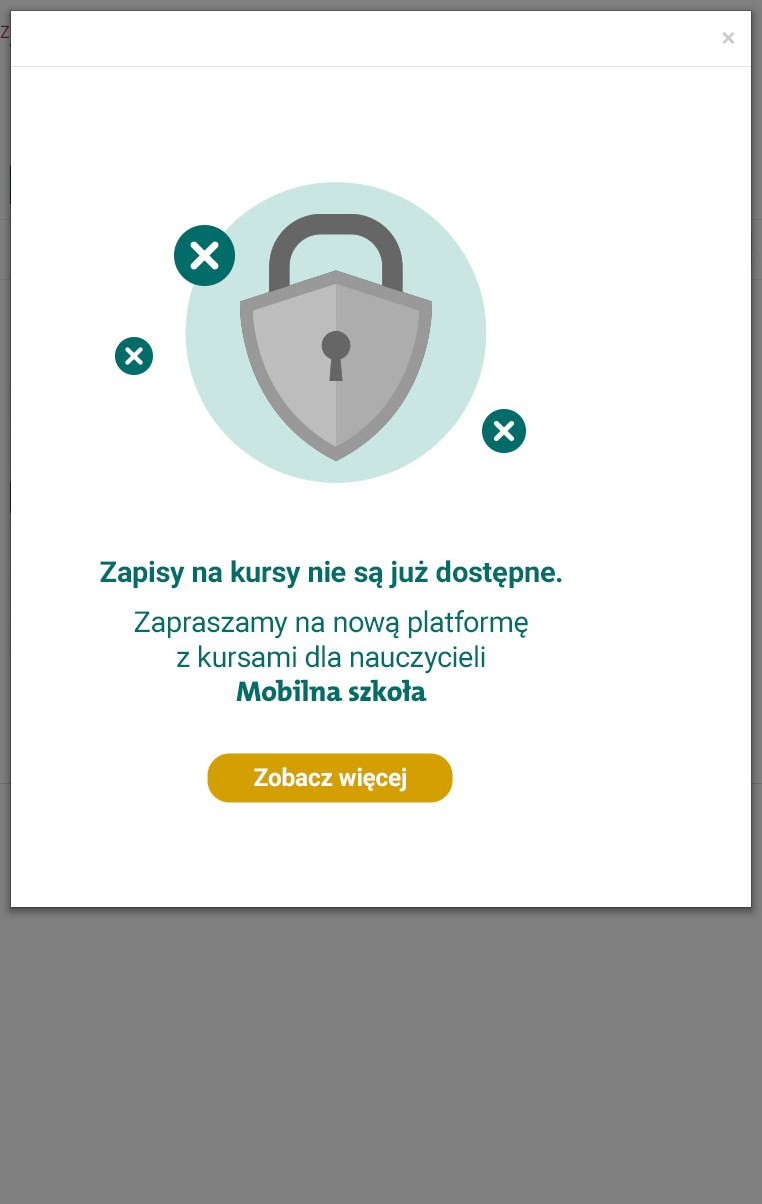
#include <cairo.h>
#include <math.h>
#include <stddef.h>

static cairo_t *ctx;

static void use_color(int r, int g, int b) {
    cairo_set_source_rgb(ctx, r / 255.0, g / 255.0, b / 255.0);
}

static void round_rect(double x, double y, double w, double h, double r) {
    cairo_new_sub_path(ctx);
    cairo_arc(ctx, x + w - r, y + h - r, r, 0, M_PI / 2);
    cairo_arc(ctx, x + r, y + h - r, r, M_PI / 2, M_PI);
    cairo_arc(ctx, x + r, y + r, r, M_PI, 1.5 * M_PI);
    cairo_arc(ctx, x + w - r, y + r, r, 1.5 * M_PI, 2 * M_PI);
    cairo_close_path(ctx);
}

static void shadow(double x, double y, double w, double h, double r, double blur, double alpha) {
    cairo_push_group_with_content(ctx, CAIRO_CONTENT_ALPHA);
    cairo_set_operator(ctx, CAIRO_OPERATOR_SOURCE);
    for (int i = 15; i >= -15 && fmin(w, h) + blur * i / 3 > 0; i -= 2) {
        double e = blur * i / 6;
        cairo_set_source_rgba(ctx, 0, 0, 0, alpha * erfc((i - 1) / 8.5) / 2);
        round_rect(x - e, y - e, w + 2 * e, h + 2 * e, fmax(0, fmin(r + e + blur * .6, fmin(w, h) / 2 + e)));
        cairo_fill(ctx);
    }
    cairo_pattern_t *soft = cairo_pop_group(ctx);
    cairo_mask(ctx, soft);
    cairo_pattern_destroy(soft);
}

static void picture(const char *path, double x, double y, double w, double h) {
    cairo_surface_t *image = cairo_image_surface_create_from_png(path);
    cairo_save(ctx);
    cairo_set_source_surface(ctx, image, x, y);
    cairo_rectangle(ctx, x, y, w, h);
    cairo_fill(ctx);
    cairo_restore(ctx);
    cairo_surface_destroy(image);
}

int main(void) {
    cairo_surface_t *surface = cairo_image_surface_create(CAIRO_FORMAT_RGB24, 762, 1204);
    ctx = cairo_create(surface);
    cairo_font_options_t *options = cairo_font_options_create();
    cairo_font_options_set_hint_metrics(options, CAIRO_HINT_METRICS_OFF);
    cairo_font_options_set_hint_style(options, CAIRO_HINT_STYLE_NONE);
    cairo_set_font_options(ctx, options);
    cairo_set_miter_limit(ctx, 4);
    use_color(128, 128, 128);
    cairo_paint(ctx);
    cairo_select_font_face(ctx, "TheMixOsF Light", CAIRO_FONT_SLANT_NORMAL, CAIRO_FONT_WEIGHT_NORMAL);
    cairo_set_font_size(ctx, 18);
    use_color(83, 22, 33);
    cairo_move_to(ctx, 0, 38);
    cairo_show_text(ctx, "Z");
    picture("img2.png", 10, 44, 1, 3);
    use_color(0, 50, 49);
    cairo_rectangle(ctx, 10, 166, 1, 38);
    cairo_fill(ctx);
    use_color(119, 119, 119);
    cairo_rectangle(ctx, 0, 219, 762, 1);
    cairo_fill(ctx);
    cairo_rectangle(ctx, 0, 279, 762, 1);
    cairo_fill(ctx);
    picture("img3.png", 3, 220, 759, 59);
    cairo_rectangle(ctx, 708.5, 232.5, 43, 33);
    use_color(111, 111, 111);
    cairo_set_line_width(ctx, 1);
    cairo_stroke(ctx);
    use_color(122, 122, 122);
    round_rect(10, 388, 180, 36, 5);
    cairo_fill(ctx);
    round_rect(10, 433, 215, 37, 5);
    cairo_fill(ctx);
    use_color(18, 55, 51);
    round_rect(10, 479, 301, 37, 5);
    cairo_fill(ctx);
    use_color(122, 122, 122);
    round_rect(10, 525, 418, 36, 5);
    cairo_fill(ctx);
    round_rect(10, 570, 278, 37, 5);
    cairo_fill(ctx);
    round_rect(10, 616, 308, 37, 5);
    cairo_fill(ctx);
    use_color(112, 112, 112);
    cairo_rectangle(ctx, 0, 783, 762, 1);
    cairo_fill(ctx);
    use_color(0, 0, 0);
    shadow(10, 13, 742, 898, 0, 4.5, 0.5);
    use_color(255, 255, 255);
    cairo_rectangle(ctx, 11, 11, 740, 896);
    cairo_fill(ctx);
    cairo_rectangle(ctx, 10.5, 10.5, 741, 897);
    cairo_set_source_rgba(ctx, 0, 0, 0, 0.2);
    cairo_stroke(ctx);
    use_color(229, 229, 229);
    cairo_rectangle(ctx, 11, 66, 740, 1);
    cairo_fill(ctx);
    cairo_select_font_face(ctx, "TheMixOsF", CAIRO_FONT_SLANT_NORMAL, CAIRO_FONT_WEIGHT_BOLD);
    cairo_set_font_size(ctx, 27);
    use_color(204, 204, 204);
    cairo_move_to(ctx, 721, 46);
    cairo_show_text(ctx, "×");
    picture("img1.png", 95, 177, 472, 630);
    cairo_surface_write_to_png(surface, "result.png");
    cairo_font_options_destroy(options);
    cairo_destroy(ctx);
    cairo_surface_destroy(surface);
    return 0;
}
